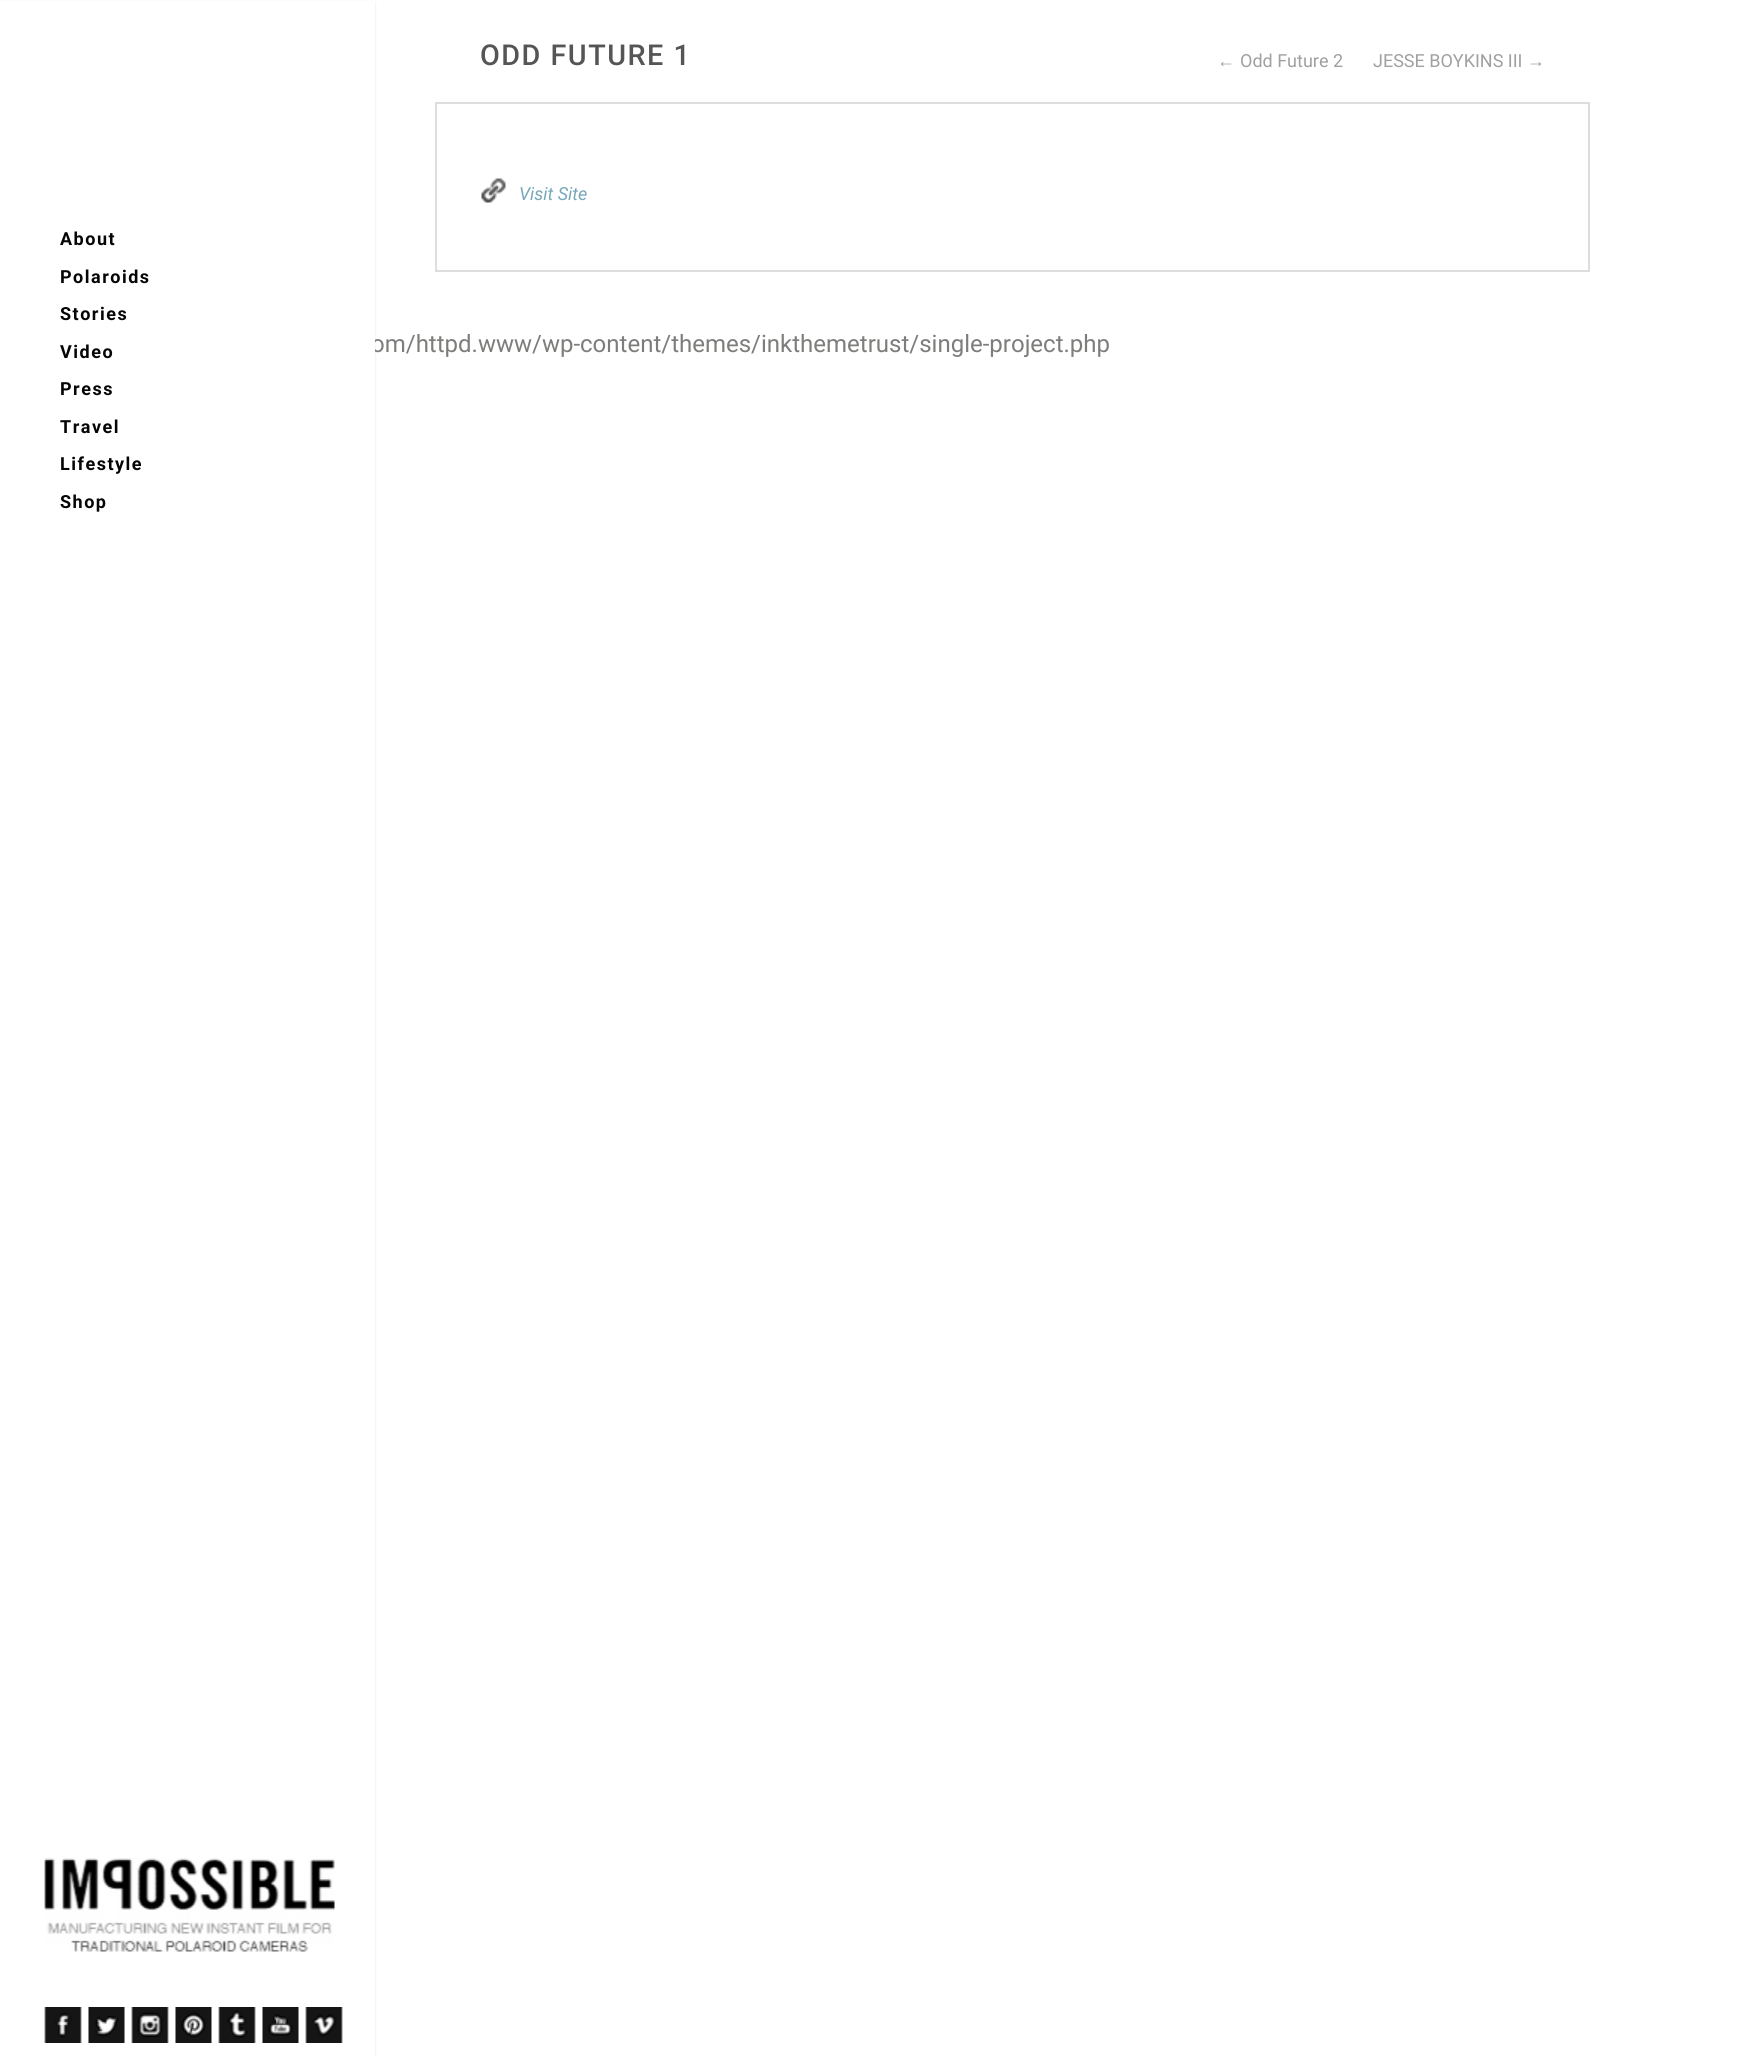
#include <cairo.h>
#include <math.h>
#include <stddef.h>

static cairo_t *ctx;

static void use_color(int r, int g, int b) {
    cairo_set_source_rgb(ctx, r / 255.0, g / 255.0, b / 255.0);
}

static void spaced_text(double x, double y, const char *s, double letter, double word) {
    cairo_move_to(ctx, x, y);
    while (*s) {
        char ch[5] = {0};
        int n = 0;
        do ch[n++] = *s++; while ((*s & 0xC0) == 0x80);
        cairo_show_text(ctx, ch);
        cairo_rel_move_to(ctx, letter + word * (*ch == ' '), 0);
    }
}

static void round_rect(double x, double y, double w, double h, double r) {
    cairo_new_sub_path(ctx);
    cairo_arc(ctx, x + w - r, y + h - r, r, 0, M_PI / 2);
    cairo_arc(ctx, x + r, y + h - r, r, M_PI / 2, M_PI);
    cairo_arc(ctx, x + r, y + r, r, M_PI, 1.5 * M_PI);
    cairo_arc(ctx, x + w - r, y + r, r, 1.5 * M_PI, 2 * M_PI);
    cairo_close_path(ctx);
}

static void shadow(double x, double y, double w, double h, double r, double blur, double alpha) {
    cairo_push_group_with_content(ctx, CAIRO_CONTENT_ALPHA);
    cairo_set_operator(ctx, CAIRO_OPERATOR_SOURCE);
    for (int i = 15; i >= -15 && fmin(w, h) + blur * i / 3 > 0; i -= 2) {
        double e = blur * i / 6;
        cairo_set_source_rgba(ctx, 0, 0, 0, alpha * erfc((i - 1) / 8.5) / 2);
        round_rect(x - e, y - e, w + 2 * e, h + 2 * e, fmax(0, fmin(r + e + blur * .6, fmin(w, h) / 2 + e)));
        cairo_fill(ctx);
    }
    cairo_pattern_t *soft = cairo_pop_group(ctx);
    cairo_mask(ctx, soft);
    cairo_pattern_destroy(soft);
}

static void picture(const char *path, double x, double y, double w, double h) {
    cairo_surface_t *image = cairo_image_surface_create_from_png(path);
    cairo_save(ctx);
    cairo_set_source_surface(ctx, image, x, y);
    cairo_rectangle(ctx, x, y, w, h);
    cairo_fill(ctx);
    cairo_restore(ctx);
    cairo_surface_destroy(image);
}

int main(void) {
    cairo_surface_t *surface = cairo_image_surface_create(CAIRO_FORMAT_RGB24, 1760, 2057);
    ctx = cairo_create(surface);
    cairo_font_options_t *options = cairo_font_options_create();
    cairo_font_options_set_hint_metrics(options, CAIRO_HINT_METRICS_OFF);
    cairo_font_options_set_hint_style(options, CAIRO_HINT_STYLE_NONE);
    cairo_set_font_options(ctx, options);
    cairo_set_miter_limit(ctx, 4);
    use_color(255, 255, 255);
    cairo_paint(ctx);
    cairo_select_font_face(ctx, "Roboto Medium", CAIRO_FONT_SLANT_NORMAL, CAIRO_FONT_WEIGHT_NORMAL);
    cairo_set_font_size(ctx, 28.75);
    use_color(85, 85, 85);
    spaced_text(480, 65, "ODD FUTURE 1", 1.5, 0);
    cairo_select_font_face(ctx, "Liberation Sans", CAIRO_FONT_SLANT_NORMAL, CAIRO_FONT_WEIGHT_NORMAL);
    cairo_set_font_size(ctx, 18);
    use_color(160, 160, 160);
    cairo_move_to(ctx, 1217, 67);
    cairo_show_text(ctx, "←");
    cairo_select_font_face(ctx, "Roboto", CAIRO_FONT_SLANT_NORMAL, CAIRO_FONT_WEIGHT_NORMAL);
    cairo_move_to(ctx, 1240, 67);
    cairo_show_text(ctx, "Odd Future 2");
    cairo_move_to(ctx, 1373, 67);
    cairo_show_text(ctx, "JESSE BOYKINS III");
    cairo_select_font_face(ctx, "Liberation Sans", CAIRO_FONT_SLANT_NORMAL, CAIRO_FONT_WEIGHT_NORMAL);
    cairo_move_to(ctx, 1527, 67);
    cairo_show_text(ctx, "→");
    cairo_rectangle(ctx, 436, 103, 1153, 168);
    use_color(221, 221, 221);
    cairo_stroke(ctx);
    picture("img1.png", 481, 178, 25, 25);
    cairo_select_font_face(ctx, "Roboto", CAIRO_FONT_SLANT_ITALIC, CAIRO_FONT_WEIGHT_NORMAL);
    use_color(119, 167, 185);
    cairo_move_to(ctx, 519, 200);
    cairo_show_text(ctx, "Visit Site");
    use_color(0, 0, 0);
    shadow(0, 2, 375, 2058, 0, 1, 0.1);
    cairo_select_font_face(ctx, "Roboto", CAIRO_FONT_SLANT_NORMAL, CAIRO_FONT_WEIGHT_NORMAL);
    cairo_set_font_size(ctx, 24);
    use_color(125, 125, 123);
    cairo_move_to(ctx, 371, 352);
    cairo_show_text(ctx, "om/httpd.www/wp-content/themes/inkthemetrust/single-project.php");
    use_color(255, 255, 255);
    cairo_rectangle(ctx, 0, 1, 375, 2056);
    cairo_fill(ctx);
    picture("img2.png", 44, 1858, 291, 94);
    picture("img3.png", 44, 2007, 38, 36);
    picture("img4.png", 88, 2007, 37, 36);
    picture("img5.png", 131, 2007, 38, 36);
    picture("img6.png", 175, 2007, 37, 36);
    picture("img7.png", 218, 2007, 38, 36);
    picture("img8.png", 262, 2007, 37, 36);
    picture("img9.png", 305, 2007, 38, 36);
    cairo_select_font_face(ctx, "Roboto", CAIRO_FONT_SLANT_NORMAL, CAIRO_FONT_WEIGHT_BOLD);
    cairo_set_font_size(ctx, 18);
    use_color(5, 5, 5);
    spaced_text(60, 245, "About", 1.5, 0);
    spaced_text(60, 283, "Polaroids", 1.5, 0);
    spaced_text(60, 320, "Stories", 1.5, 0);
    spaced_text(60, 358, "Video", 1.5, 0);
    spaced_text(60, 395, "Press", 1.5, 0);
    spaced_text(60, 433, "Travel", 1.5, 0);
    spaced_text(60, 470, "Lifestyle", 1.5, 0);
    spaced_text(60, 508, "Shop", 1.5, 0);
    cairo_surface_write_to_png(surface, "result.png");
    cairo_font_options_destroy(options);
    cairo_destroy(ctx);
    cairo_surface_destroy(surface);
    return 0;
}
